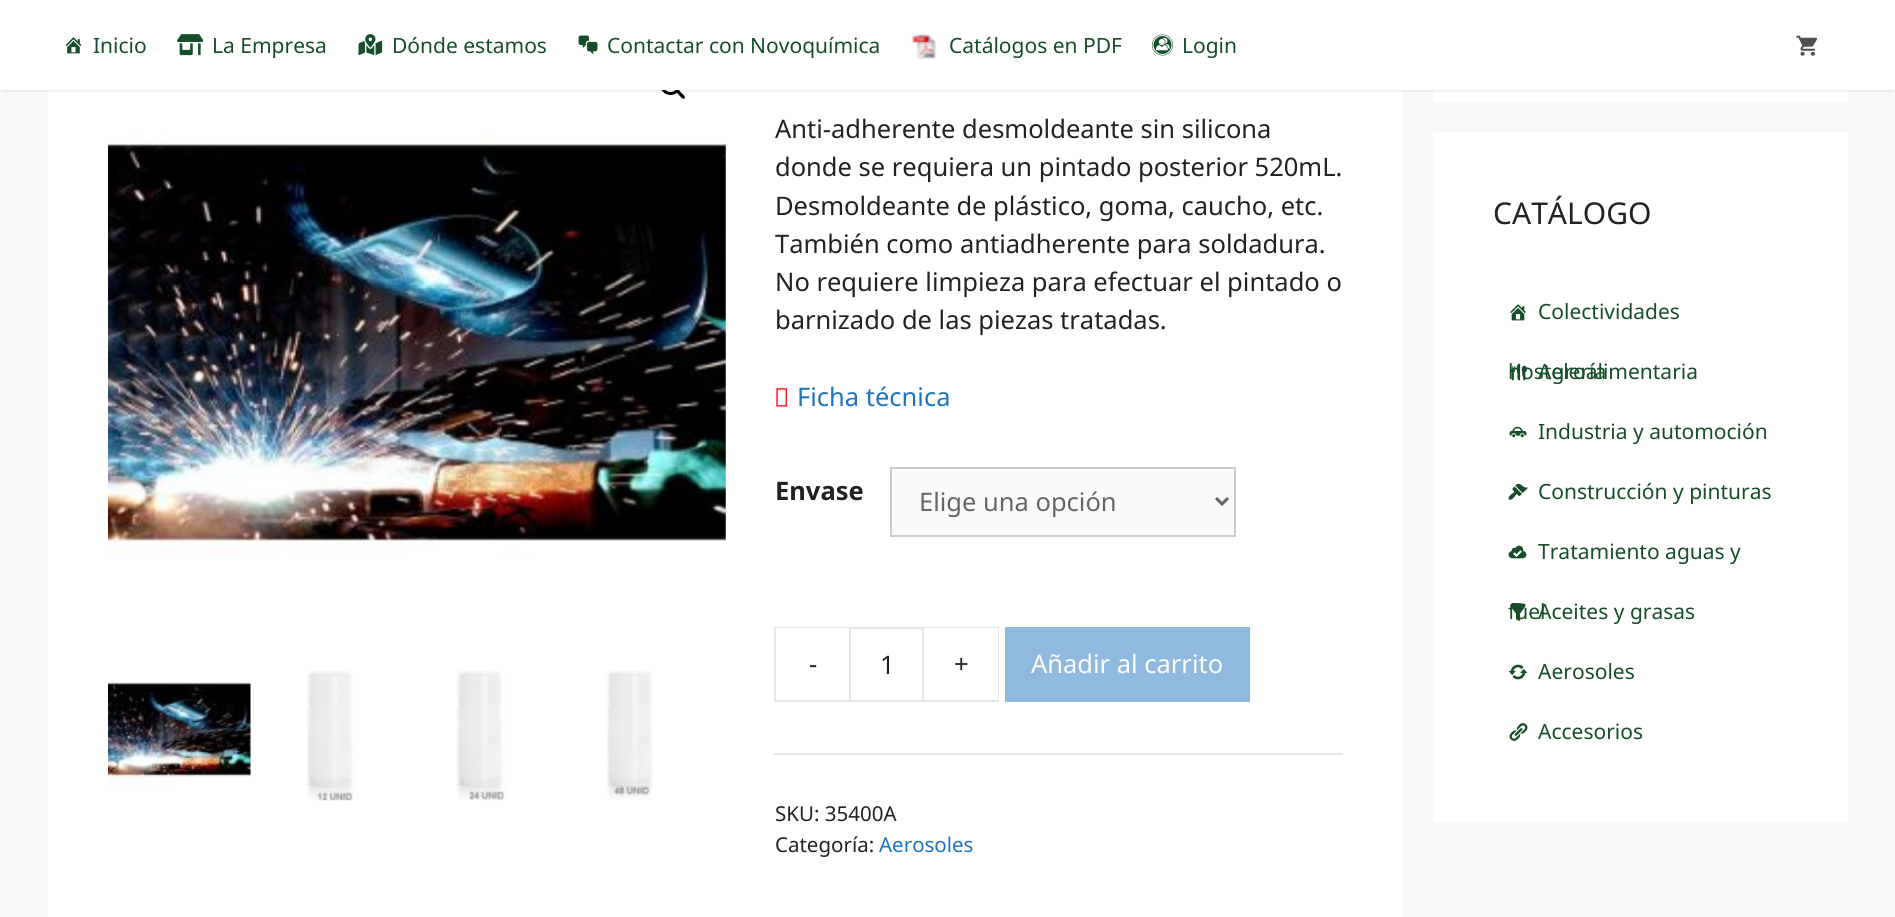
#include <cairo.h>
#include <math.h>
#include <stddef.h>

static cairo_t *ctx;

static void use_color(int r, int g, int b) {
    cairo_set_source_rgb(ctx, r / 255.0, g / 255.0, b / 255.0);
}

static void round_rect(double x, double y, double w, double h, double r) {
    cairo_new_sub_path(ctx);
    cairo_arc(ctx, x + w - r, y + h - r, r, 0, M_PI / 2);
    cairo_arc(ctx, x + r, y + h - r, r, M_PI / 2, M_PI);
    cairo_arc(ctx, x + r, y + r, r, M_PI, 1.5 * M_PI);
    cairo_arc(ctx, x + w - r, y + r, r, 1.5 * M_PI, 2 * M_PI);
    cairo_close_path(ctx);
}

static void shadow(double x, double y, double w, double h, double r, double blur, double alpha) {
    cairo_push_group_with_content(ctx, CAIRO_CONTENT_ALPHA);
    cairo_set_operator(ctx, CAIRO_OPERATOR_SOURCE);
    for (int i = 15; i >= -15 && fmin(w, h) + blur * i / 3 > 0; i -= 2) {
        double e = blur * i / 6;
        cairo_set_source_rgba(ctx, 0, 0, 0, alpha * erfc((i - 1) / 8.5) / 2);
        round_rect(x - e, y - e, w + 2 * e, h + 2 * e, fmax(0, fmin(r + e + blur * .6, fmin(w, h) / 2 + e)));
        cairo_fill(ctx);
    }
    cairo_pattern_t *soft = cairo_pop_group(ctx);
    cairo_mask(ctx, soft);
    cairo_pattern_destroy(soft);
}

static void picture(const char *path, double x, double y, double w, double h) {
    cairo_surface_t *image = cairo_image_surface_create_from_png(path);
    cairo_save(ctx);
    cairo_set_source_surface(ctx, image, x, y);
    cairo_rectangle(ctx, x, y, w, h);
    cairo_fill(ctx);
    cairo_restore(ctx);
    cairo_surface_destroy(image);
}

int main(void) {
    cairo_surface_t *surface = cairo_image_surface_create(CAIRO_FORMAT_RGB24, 1895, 917);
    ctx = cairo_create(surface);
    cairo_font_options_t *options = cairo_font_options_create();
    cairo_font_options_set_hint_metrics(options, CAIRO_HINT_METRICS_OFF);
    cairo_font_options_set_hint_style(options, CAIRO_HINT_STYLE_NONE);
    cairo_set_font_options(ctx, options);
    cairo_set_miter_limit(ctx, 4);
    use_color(247, 248, 249);
    cairo_paint(ctx);
    use_color(255, 255, 255);
    cairo_rectangle(ctx, 48, 90, 1355, 827);
    cairo_fill(ctx);
    cairo_arc(ctx, 670.5, 84.5, 9, 0, 2 * M_PI);
    use_color(0, 0, 0);
    cairo_set_line_width(ctx, 3);
    cairo_stroke(ctx);
    cairo_new_path(ctx);
    cairo_move_to(ctx, 676, 90);
    cairo_curve_to(ctx, 678, 88, 680.5, 92, 681.5, 93);
    cairo_curve_to(ctx, 682.5, 94, 686, 96.5, 684.5, 98.5);
    cairo_curve_to(ctx, 683, 100, 680, 96, 679, 95);
    cairo_curve_to(ctx, 678.5, 94, 674.5, 91.5, 676, 90);
    cairo_close_path(ctx);
    cairo_fill(ctx);
    use_color(255, 255, 255);
    cairo_rectangle(ctx, 1433, 90, 415, 12);
    cairo_fill(ctx);
    use_color(0, 0, 0);
    shadow(3, 6, 1890, 84, 0, 1.5, 0.2);
    use_color(255, 255, 255);
    cairo_rectangle(ctx, 0, 0, 1895, 90);
    cairo_fill(ctx);
    picture("img1.png", 65, 37, 17, 17);
    cairo_select_font_face(ctx, "Noto Sans", CAIRO_FONT_SLANT_NORMAL, CAIRO_FONT_WEIGHT_NORMAL);
    cairo_set_font_size(ctx, 21);
    use_color(22, 78, 42);
    cairo_move_to(ctx, 93, 53);
    cairo_show_text(ctx, "Inicio");
    picture("img2.png", 177, 34, 27, 22);
    cairo_move_to(ctx, 212, 53);
    cairo_show_text(ctx, "La Empresa");
    picture("img3.png", 358, 34, 25, 22);
    cairo_move_to(ctx, 392, 53);
    cairo_show_text(ctx, "Dónde estamos");
    picture("img4.png", 578, 35, 20, 20);
    cairo_move_to(ctx, 607, 53);
    cairo_show_text(ctx, "Contactar con Novoquímica");
    picture("img5.png", 911, 34, 26, 25);
    cairo_move_to(ctx, 949, 53);
    cairo_show_text(ctx, "Catálogos en PDF");
    picture("img6.png", 1152, 34, 21, 22);
    cairo_move_to(ctx, 1182, 53);
    cairo_show_text(ctx, "Login");
    picture("img7.png", 1796, 35, 22, 21);
    picture("img8.png", 108, 133, 618, 428);
    cairo_set_source_rgba(ctx, 1, 1, 1, 0.25);
    cairo_rectangle(ctx, 725, 144, 1, 397);
    cairo_fill(ctx);
    picture("img9.png", 108, 681, 143, 109);
    picture("img10.png", 306, 670, 53, 131);
    picture("img11.png", 456, 670, 54, 131);
    picture("img12.png", 606, 670, 47, 130);
    cairo_set_font_size(ctx, 25.5);
    use_color(34, 34, 34);
    cairo_move_to(ctx, 775, 138);
    cairo_show_text(ctx, "Anti-adherente desmoldeante sin silicona");
    cairo_move_to(ctx, 775, 176);
    cairo_show_text(ctx, "donde se requiera un pintado posterior 520mL.");
    cairo_move_to(ctx, 775, 215);
    cairo_show_text(ctx, "Desmoldeante de plástico, goma, caucho, etc.");
    cairo_move_to(ctx, 775, 253);
    cairo_show_text(ctx, "También como antiadherente para soldadura.");
    cairo_move_to(ctx, 775, 291);
    cairo_show_text(ctx, "No requiere limpieza para efectuar el pintado o");
    cairo_move_to(ctx, 775, 329);
    cairo_show_text(ctx, "barnizado de las piezas tratadas.");
    picture("img13.png", 776, 388, 11, 19);
    use_color(30, 115, 190);
    cairo_move_to(ctx, 797, 406);
    cairo_show_text(ctx, "Ficha técnica");
    cairo_select_font_face(ctx, "Noto Sans", CAIRO_FONT_SLANT_NORMAL, CAIRO_FONT_WEIGHT_BOLD);
    use_color(34, 34, 34);
    cairo_move_to(ctx, 775, 500);
    cairo_show_text(ctx, "Envase");
    use_color(250, 250, 250);
    cairo_rectangle(ctx, 891, 468, 344, 68);
    cairo_fill_preserve(ctx);
    use_color(204, 204, 204);
    cairo_set_line_width(ctx, 2);
    cairo_stroke(ctx);
    cairo_new_path(ctx);
    cairo_move_to(ctx, 1216, 498);
    cairo_line_to(ctx, 1222, 504);
    cairo_line_to(ctx, 1228, 498);
    use_color(102, 102, 102);
    cairo_set_line_width(ctx, 3);
    cairo_stroke(ctx);
    cairo_select_font_face(ctx, "Noto Sans", CAIRO_FONT_SLANT_NORMAL, CAIRO_FONT_WEIGHT_NORMAL);
    cairo_move_to(ctx, 919, 511);
    cairo_show_text(ctx, "Elige una opción");
    use_color(230, 230, 230);
    cairo_new_path(ctx);
    cairo_move_to(ctx, 774, 627);
    cairo_line_to(ctx, 849, 627);
    cairo_line_to(ctx, 849, 628);
    cairo_line_to(ctx, 776, 628);
    cairo_close_path(ctx);
    cairo_fill(ctx);
    cairo_new_path(ctx);
    cairo_move_to(ctx, 849, 702);
    cairo_line_to(ctx, 774, 702);
    cairo_line_to(ctx, 776, 700);
    cairo_line_to(ctx, 849, 700);
    cairo_close_path(ctx);
    cairo_fill(ctx);
    cairo_set_source_rgba(ctx, 0, 0, 0, 0.1);
    cairo_new_path(ctx);
    cairo_move_to(ctx, 774, 702);
    cairo_line_to(ctx, 774, 627);
    cairo_line_to(ctx, 776, 628);
    cairo_line_to(ctx, 776, 700);
    cairo_close_path(ctx);
    cairo_fill(ctx);
    use_color(34, 34, 34);
    cairo_move_to(ctx, 809, 673);
    cairo_show_text(ctx, "-");
    cairo_rectangle(ctx, 850, 628, 73, 73);
    use_color(230, 230, 230);
    cairo_set_line_width(ctx, 2);
    cairo_stroke(ctx);
    use_color(34, 34, 34);
    cairo_move_to(ctx, 880, 674);
    cairo_show_text(ctx, "1");
    use_color(230, 230, 230);
    cairo_new_path(ctx);
    cairo_move_to(ctx, 924, 627);
    cairo_line_to(ctx, 999, 627);
    cairo_line_to(ctx, 998, 628);
    cairo_line_to(ctx, 924, 628);
    cairo_close_path(ctx);
    cairo_fill(ctx);
    cairo_set_source_rgba(ctx, 0, 0, 0, 0.1);
    cairo_new_path(ctx);
    cairo_move_to(ctx, 999, 627);
    cairo_line_to(ctx, 999, 702);
    cairo_line_to(ctx, 998, 700);
    cairo_line_to(ctx, 998, 628);
    cairo_close_path(ctx);
    cairo_fill(ctx);
    cairo_new_path(ctx);
    cairo_move_to(ctx, 999, 702);
    cairo_line_to(ctx, 924, 702);
    cairo_line_to(ctx, 924, 700);
    cairo_line_to(ctx, 998, 700);
    cairo_close_path(ctx);
    cairo_fill(ctx);
    use_color(34, 34, 34);
    cairo_move_to(ctx, 954, 673);
    cairo_show_text(ctx, "+");
    use_color(143, 185, 223);
    cairo_rectangle(ctx, 1005, 627, 245, 75);
    cairo_fill(ctx);
    use_color(255, 255, 255);
    cairo_move_to(ctx, 1031, 673);
    cairo_show_text(ctx, "Añadir al carrito");
    use_color(230, 230, 230);
    cairo_rectangle(ctx, 774, 753, 569, 2);
    cairo_fill(ctx);
    cairo_set_font_size(ctx, 20.5);
    use_color(34, 34, 34);
    cairo_move_to(ctx, 775, 821);
    cairo_show_text(ctx, "SKU: 35400A");
    cairo_move_to(ctx, 775, 852);
    cairo_show_text(ctx, "Categoría:");
    use_color(30, 115, 190);
    cairo_move_to(ctx, 879, 852);
    cairo_show_text(ctx, "Aerosoles");
    use_color(255, 255, 255);
    cairo_rectangle(ctx, 1433, 132, 415, 690);
    cairo_fill(ctx);
    cairo_set_font_size(ctx, 30);
    use_color(34, 34, 34);
    cairo_move_to(ctx, 1493, 224);
    cairo_show_text(ctx, "CATÁLOGO");
    picture("img14.png", 1510, 304, 16, 17);
    cairo_set_font_size(ctx, 21);
    use_color(22, 78, 42);
    cairo_move_to(ctx, 1538, 319);
    cairo_show_text(ctx, "Colectividades");
    cairo_move_to(ctx, 1508, 379);
    cairo_show_text(ctx, "hostelería");
    picture("img15.png", 1511, 363, 16, 18);
    cairo_move_to(ctx, 1538, 379);
    cairo_show_text(ctx, "Agroalimentaria");
    picture("img16.png", 1509, 426, 18, 12);
    cairo_move_to(ctx, 1538, 439);
    cairo_show_text(ctx, "Industria y automoción");
    picture("img17.png", 1508, 483, 21, 17);
    cairo_move_to(ctx, 1538, 499);
    cairo_show_text(ctx, "Construcción y pinturas");
    picture("img18.png", 1508, 545, 19, 14);
    cairo_move_to(ctx, 1538, 559);
    cairo_show_text(ctx, "Tratamiento aguas y");
    cairo_move_to(ctx, 1508, 619);
    cairo_show_text(ctx, "fuel");
    picture("img19.png", 1510, 603, 16, 18);
    cairo_move_to(ctx, 1538, 619);
    cairo_show_text(ctx, "Aceites y grasas");
    picture("img20.png", 1508, 664, 20, 16);
    cairo_move_to(ctx, 1538, 679);
    cairo_show_text(ctx, "Aerosoles");
    picture("img21.png", 1509, 723, 19, 18);
    cairo_move_to(ctx, 1538, 739);
    cairo_show_text(ctx, "Accesorios");
    cairo_surface_write_to_png(surface, "result.png");
    cairo_font_options_destroy(options);
    cairo_destroy(ctx);
    cairo_surface_destroy(surface);
    return 0;
}
